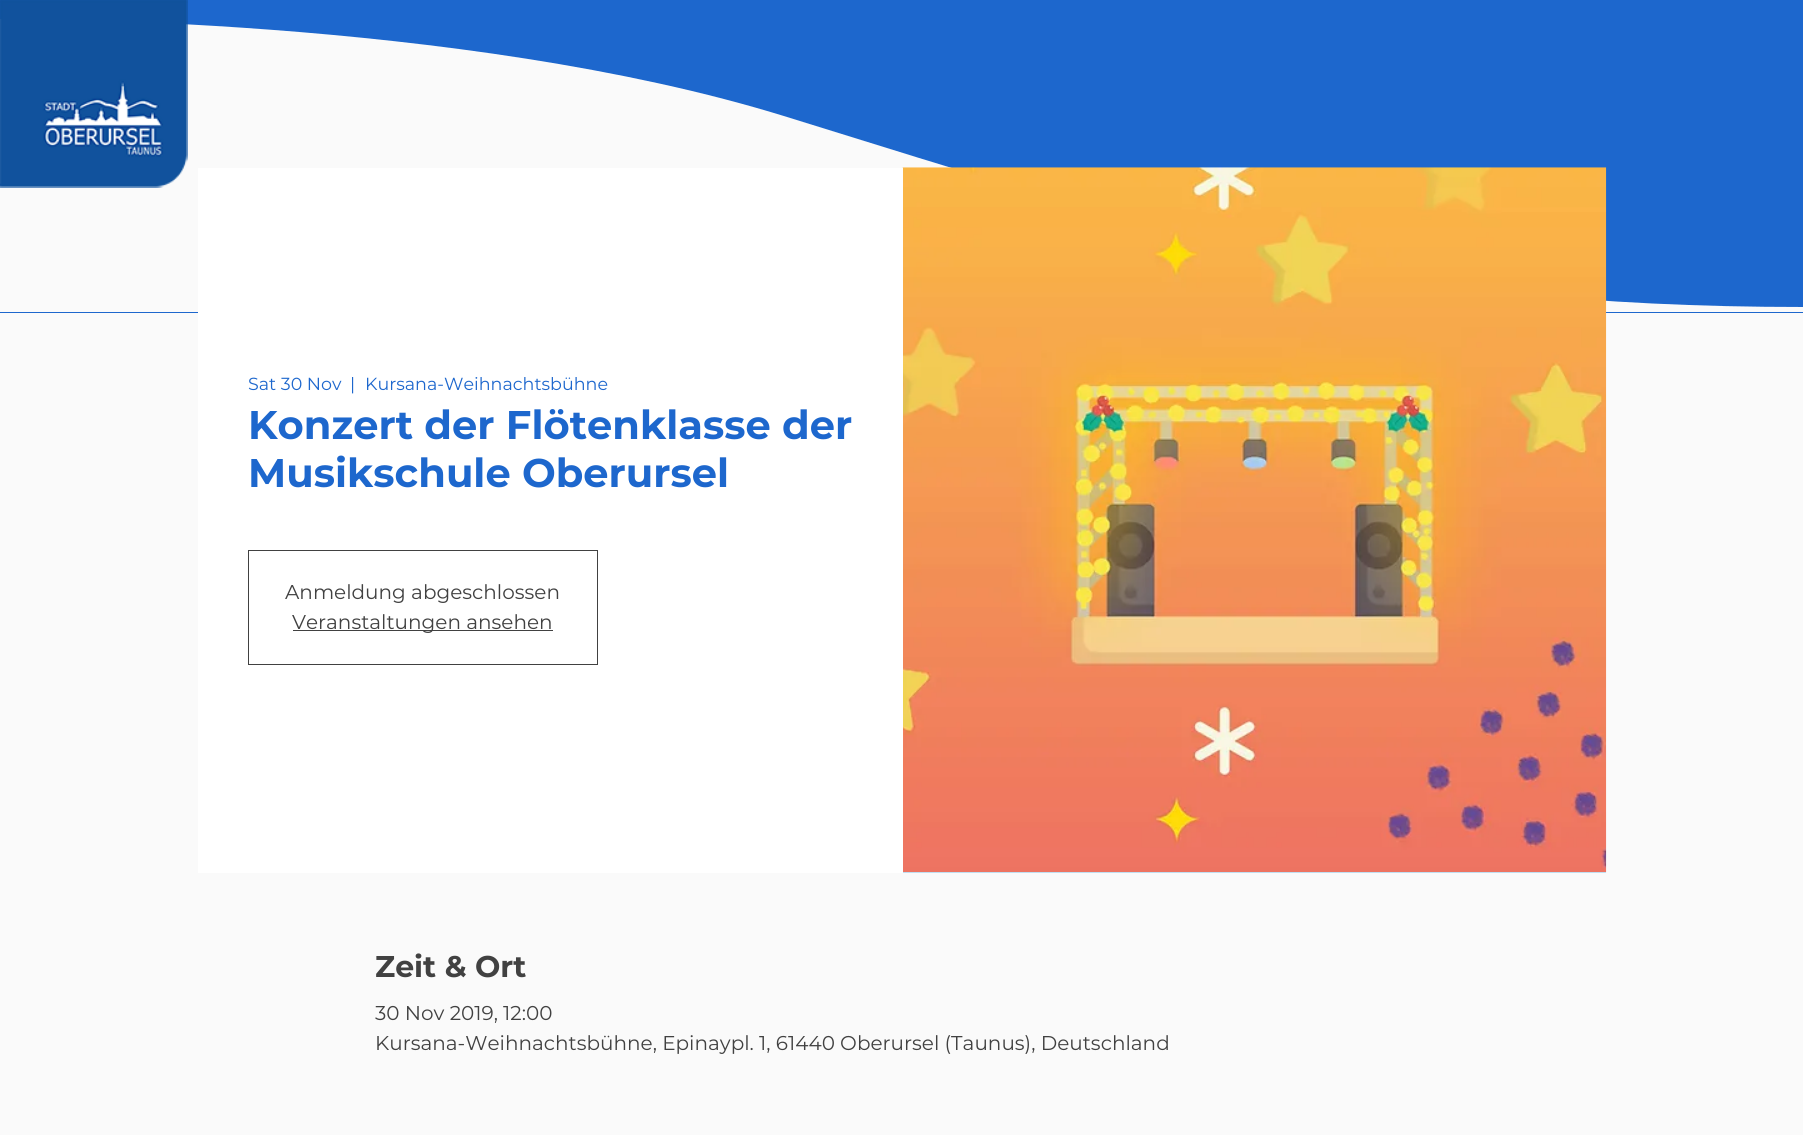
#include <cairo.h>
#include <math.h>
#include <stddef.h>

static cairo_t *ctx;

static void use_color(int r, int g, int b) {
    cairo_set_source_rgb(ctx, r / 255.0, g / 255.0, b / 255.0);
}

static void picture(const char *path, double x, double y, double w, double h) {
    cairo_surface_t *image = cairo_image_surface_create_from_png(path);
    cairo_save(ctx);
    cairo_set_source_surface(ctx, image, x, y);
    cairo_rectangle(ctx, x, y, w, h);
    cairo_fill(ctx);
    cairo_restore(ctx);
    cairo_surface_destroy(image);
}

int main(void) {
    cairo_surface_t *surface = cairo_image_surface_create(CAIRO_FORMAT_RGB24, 1803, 1135);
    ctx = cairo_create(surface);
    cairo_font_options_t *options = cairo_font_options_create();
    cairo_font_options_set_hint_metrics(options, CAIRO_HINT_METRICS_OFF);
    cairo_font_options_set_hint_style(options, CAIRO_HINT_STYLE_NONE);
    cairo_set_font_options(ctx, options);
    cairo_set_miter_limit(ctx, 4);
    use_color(250, 250, 250);
    cairo_paint(ctx);
    use_color(29, 103, 205);
    cairo_rectangle(ctx, 0, 0, 1803, 313);
    cairo_fill(ctx);
    use_color(250, 250, 250);
    cairo_new_path(ctx);
    cairo_move_to(ctx, 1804, 312);
    cairo_line_to(ctx, 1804, 307);
    cairo_curve_to(ctx, 1376, 307, 1155, 231, 787, 117);
    cairo_curve_to(ctx, 460, 15, 0, 19, 0, 19);
    cairo_line_to(ctx, 0, 312);
    cairo_close_path(ctx);
    cairo_fill(ctx);
    picture("img1.png", 0, 0, 188, 188);
    use_color(190, 229, 251);
    cairo_rectangle(ctx, 903, 872, 703, 1);
    cairo_fill(ctx);
    picture("img2.png", 902, 167, 705, 706);
    use_color(255, 255, 255);
    cairo_rectangle(ctx, 198, 168, 705, 705);
    cairo_fill(ctx);
    cairo_select_font_face(ctx, "Montserrat", CAIRO_FONT_SLANT_NORMAL, CAIRO_FONT_WEIGHT_NORMAL);
    cairo_set_font_size(ctx, 17.5);
    use_color(29, 103, 205);
    cairo_move_to(ctx, 248, 390);
    cairo_show_text(ctx, "Sat 30 Nov");
    cairo_move_to(ctx, 350, 390);
    cairo_show_text(ctx, "|");
    cairo_move_to(ctx, 365, 390);
    cairo_show_text(ctx, "Kursana-Weihnachtsbühne");
    cairo_select_font_face(ctx, "Montserrat", CAIRO_FONT_SLANT_NORMAL, CAIRO_FONT_WEIGHT_BOLD);
    cairo_set_font_size(ctx, 40);
    cairo_move_to(ctx, 248, 439);
    cairo_show_text(ctx, "Konzert der Flötenklasse der");
    cairo_move_to(ctx, 248, 487);
    cairo_show_text(ctx, "Musikschule Oberursel");
    cairo_rectangle(ctx, 248.5, 550.5, 349, 114);
    use_color(65, 65, 65);
    cairo_set_line_width(ctx, 1);
    cairo_stroke(ctx);
    cairo_select_font_face(ctx, "Montserrat", CAIRO_FONT_SLANT_NORMAL, CAIRO_FONT_WEIGHT_NORMAL);
    cairo_set_font_size(ctx, 20);
    cairo_move_to(ctx, 285, 599);
    cairo_show_text(ctx, "Anmeldung abgeschlossen");
    cairo_rectangle(ctx, 293, 630, 260, 1);
    cairo_fill(ctx);
    cairo_move_to(ctx, 292, 629);
    cairo_show_text(ctx, "Veranstaltungen ansehen");
    cairo_select_font_face(ctx, "Montserrat", CAIRO_FONT_SLANT_NORMAL, CAIRO_FONT_WEIGHT_BOLD);
    cairo_set_font_size(ctx, 30);
    cairo_move_to(ctx, 375, 977);
    cairo_show_text(ctx, "Zeit & Ort");
    cairo_select_font_face(ctx, "Montserrat", CAIRO_FONT_SLANT_NORMAL, CAIRO_FONT_WEIGHT_NORMAL);
    cairo_set_font_size(ctx, 20);
    cairo_move_to(ctx, 375, 1020);
    cairo_show_text(ctx, "30 Nov 2019, 12:00");
    cairo_move_to(ctx, 375, 1050);
    cairo_show_text(ctx, "Kursana-Weihnachtsbühne, Epinaypl. 1, 61440 Oberursel (Taunus), Deutschland");
    cairo_surface_write_to_png(surface, "result.png");
    cairo_font_options_destroy(options);
    cairo_destroy(ctx);
    cairo_surface_destroy(surface);
    return 0;
}
